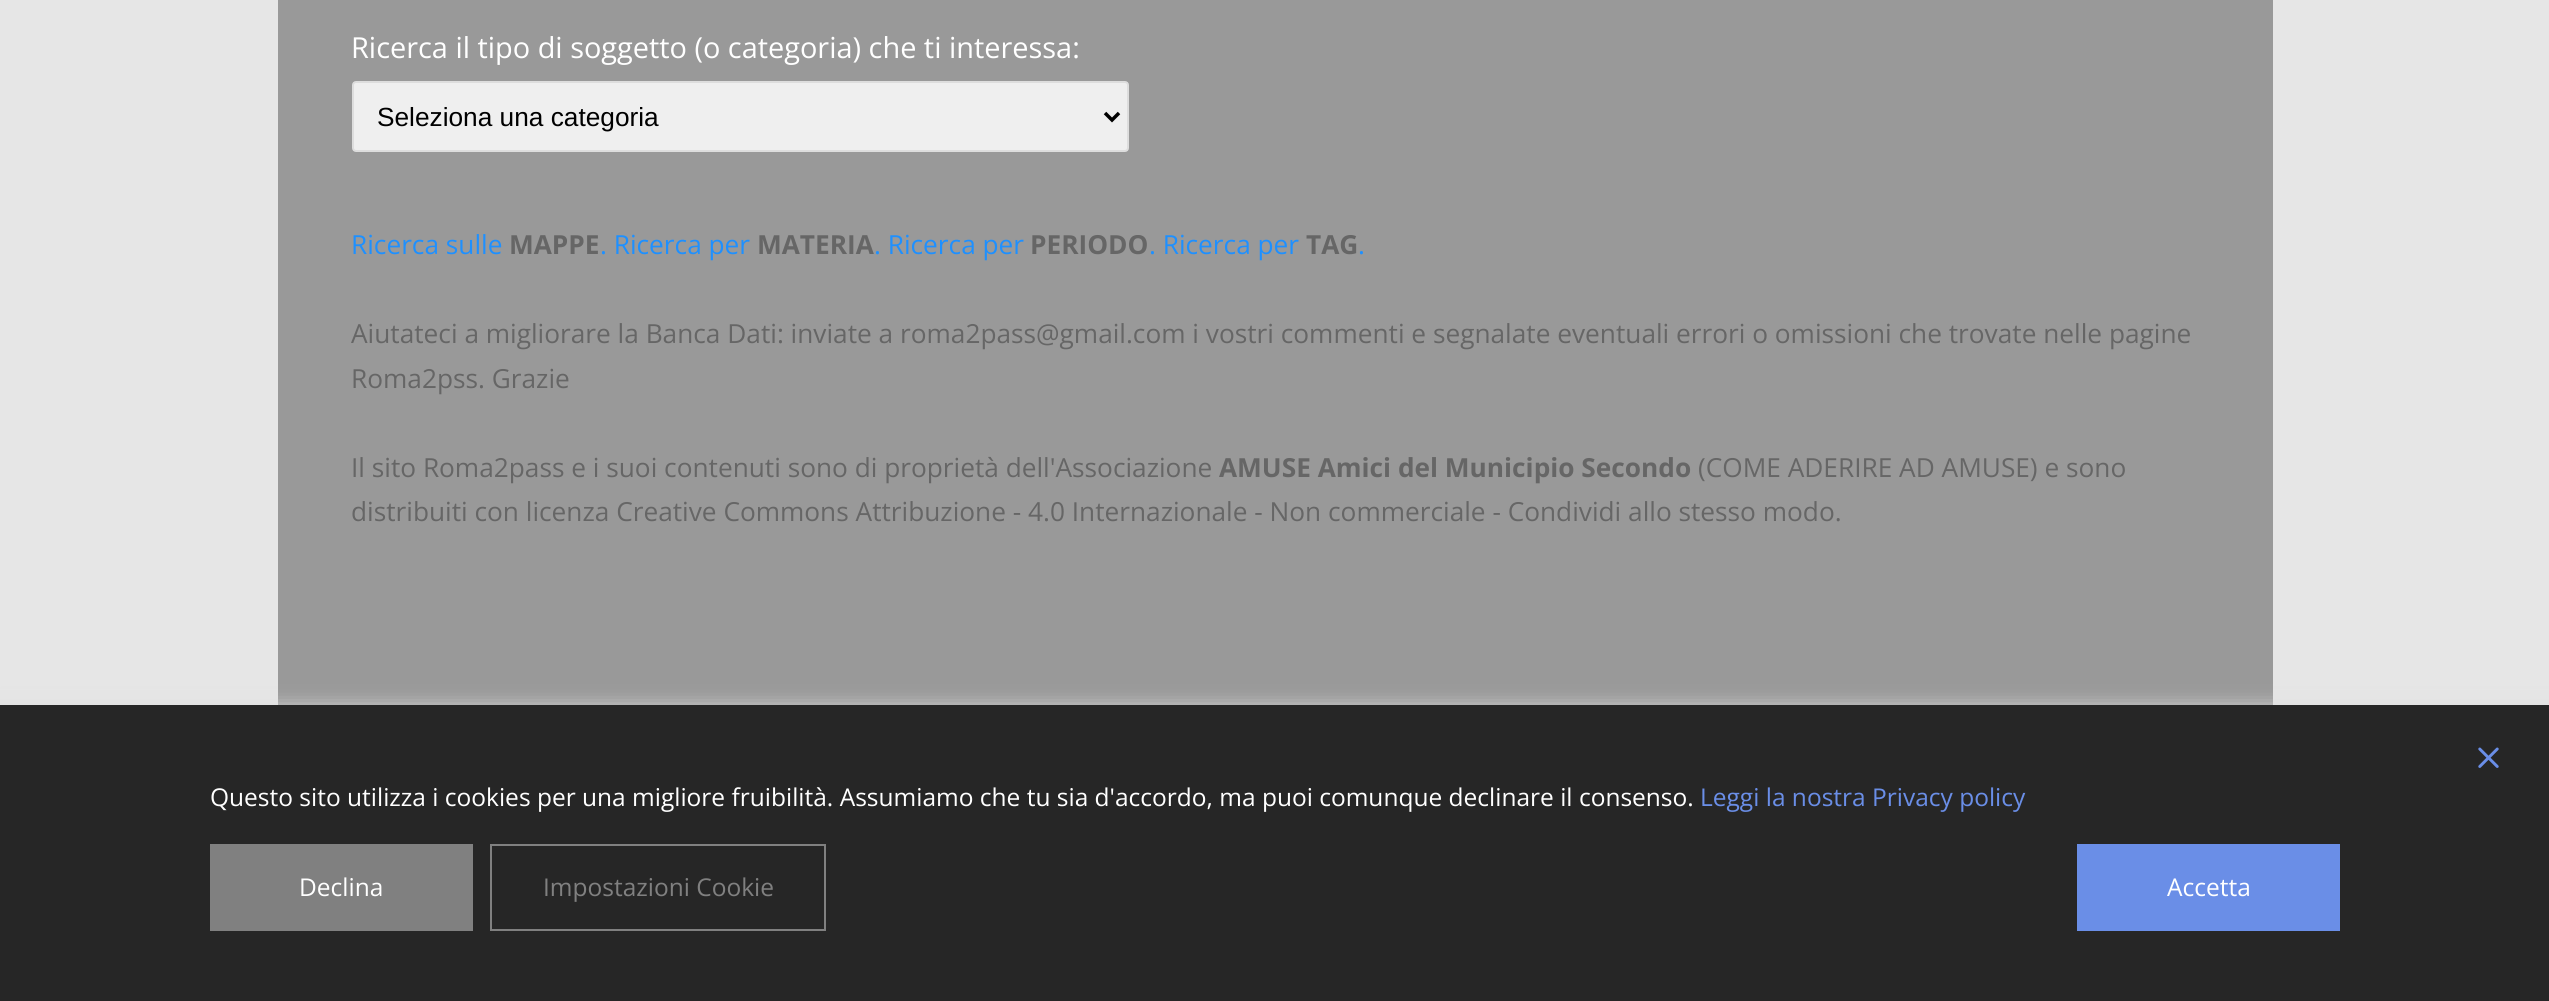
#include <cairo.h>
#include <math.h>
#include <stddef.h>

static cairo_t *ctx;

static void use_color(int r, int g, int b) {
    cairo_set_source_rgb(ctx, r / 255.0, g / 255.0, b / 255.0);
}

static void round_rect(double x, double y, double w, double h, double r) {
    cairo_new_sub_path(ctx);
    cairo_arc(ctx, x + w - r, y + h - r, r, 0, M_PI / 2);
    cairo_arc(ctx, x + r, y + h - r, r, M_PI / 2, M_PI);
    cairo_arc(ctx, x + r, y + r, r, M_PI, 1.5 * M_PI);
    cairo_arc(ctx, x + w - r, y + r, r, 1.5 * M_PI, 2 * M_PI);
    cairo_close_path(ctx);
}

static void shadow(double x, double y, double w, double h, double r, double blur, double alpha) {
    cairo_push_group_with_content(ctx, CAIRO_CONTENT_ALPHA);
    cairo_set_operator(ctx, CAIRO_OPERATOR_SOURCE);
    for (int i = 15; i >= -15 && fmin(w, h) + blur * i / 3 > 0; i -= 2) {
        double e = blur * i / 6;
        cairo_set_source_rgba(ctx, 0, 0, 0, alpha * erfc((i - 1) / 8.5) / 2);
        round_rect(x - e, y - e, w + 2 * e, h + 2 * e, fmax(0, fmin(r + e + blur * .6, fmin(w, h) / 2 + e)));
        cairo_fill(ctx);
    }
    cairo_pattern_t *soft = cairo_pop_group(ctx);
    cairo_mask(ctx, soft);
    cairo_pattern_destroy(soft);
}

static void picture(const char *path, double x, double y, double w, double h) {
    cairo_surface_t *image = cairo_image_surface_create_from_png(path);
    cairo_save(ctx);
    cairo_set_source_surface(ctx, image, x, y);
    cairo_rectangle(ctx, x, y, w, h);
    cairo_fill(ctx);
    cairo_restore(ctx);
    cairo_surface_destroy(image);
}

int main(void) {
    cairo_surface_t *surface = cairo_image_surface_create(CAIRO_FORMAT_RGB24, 2549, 1001);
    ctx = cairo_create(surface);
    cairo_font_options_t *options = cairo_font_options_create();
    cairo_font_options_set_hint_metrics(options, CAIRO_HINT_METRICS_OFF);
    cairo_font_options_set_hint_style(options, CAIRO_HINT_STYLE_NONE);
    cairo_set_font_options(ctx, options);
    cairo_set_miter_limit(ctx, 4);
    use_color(230, 230, 230);
    cairo_paint(ctx);
    use_color(153, 153, 153);
    cairo_rectangle(ctx, 278, 0, 1995, 705);
    cairo_fill(ctx);
    cairo_select_font_face(ctx, "Open Sans", CAIRO_FONT_SLANT_NORMAL, CAIRO_FONT_WEIGHT_NORMAL);
    cairo_set_font_size(ctx, 28.9);
    use_color(255, 255, 255);
    cairo_move_to(ctx, 351, 58);
    cairo_show_text(ctx, "Ricerca il tipo di soggetto (o categoria) che ti interessa:");
    use_color(239, 239, 239);
    round_rect(353, 82, 775, 69, 3);
    cairo_fill_preserve(ctx);
    use_color(221, 221, 221);
    cairo_stroke(ctx);
    cairo_new_path(ctx);
    cairo_move_to(ctx, 1105, 113);
    cairo_line_to(ctx, 1112, 120);
    cairo_line_to(ctx, 1119, 113);
    use_color(0, 0, 0);
    cairo_set_line_width(ctx, 3.5);
    cairo_stroke(ctx);
    cairo_select_font_face(ctx, "Liberation Sans", CAIRO_FONT_SLANT_NORMAL, CAIRO_FONT_WEIGHT_NORMAL);
    cairo_set_font_size(ctx, 26.25);
    cairo_move_to(ctx, 377, 126);
    cairo_show_text(ctx, "Seleziona una categoria");
    cairo_select_font_face(ctx, "Open Sans", CAIRO_FONT_SLANT_NORMAL, CAIRO_FONT_WEIGHT_NORMAL);
    use_color(30, 144, 255);
    cairo_move_to(ctx, 351, 254);
    cairo_show_text(ctx, "Ricerca sulle");
    cairo_select_font_face(ctx, "Open Sans", CAIRO_FONT_SLANT_NORMAL, CAIRO_FONT_WEIGHT_BOLD);
    use_color(102, 102, 102);
    cairo_move_to(ctx, 509, 254);
    cairo_show_text(ctx, "MAPPE");
    cairo_select_font_face(ctx, "Open Sans", CAIRO_FONT_SLANT_NORMAL, CAIRO_FONT_WEIGHT_NORMAL);
    use_color(30, 144, 255);
    cairo_move_to(ctx, 600, 254);
    cairo_show_text(ctx, ". Ricerca per");
    cairo_select_font_face(ctx, "Open Sans", CAIRO_FONT_SLANT_NORMAL, CAIRO_FONT_WEIGHT_BOLD);
    use_color(102, 102, 102);
    cairo_move_to(ctx, 757, 254);
    cairo_show_text(ctx, "MATERIA");
    cairo_select_font_face(ctx, "Open Sans", CAIRO_FONT_SLANT_NORMAL, CAIRO_FONT_WEIGHT_NORMAL);
    use_color(30, 144, 255);
    cairo_move_to(ctx, 874, 254);
    cairo_show_text(ctx, ". Ricerca per");
    cairo_select_font_face(ctx, "Open Sans", CAIRO_FONT_SLANT_NORMAL, CAIRO_FONT_WEIGHT_BOLD);
    use_color(102, 102, 102);
    cairo_move_to(ctx, 1030, 254);
    cairo_show_text(ctx, "PERIODO");
    cairo_select_font_face(ctx, "Open Sans", CAIRO_FONT_SLANT_NORMAL, CAIRO_FONT_WEIGHT_NORMAL);
    use_color(30, 144, 255);
    cairo_move_to(ctx, 1149, 254);
    cairo_show_text(ctx, ". Ricerca per");
    cairo_select_font_face(ctx, "Open Sans", CAIRO_FONT_SLANT_NORMAL, CAIRO_FONT_WEIGHT_BOLD);
    use_color(102, 102, 102);
    cairo_move_to(ctx, 1306, 254);
    cairo_show_text(ctx, "TAG");
    cairo_select_font_face(ctx, "Open Sans", CAIRO_FONT_SLANT_NORMAL, CAIRO_FONT_WEIGHT_NORMAL);
    use_color(30, 144, 255);
    cairo_move_to(ctx, 1358, 254);
    cairo_show_text(ctx, ".");
    use_color(102, 102, 102);
    cairo_move_to(ctx, 351, 343);
    cairo_show_text(ctx, "Aiutateci a migliorare la Banca Dati: inviate a roma2pass@gmail.com i vostri commenti e segnalate eventuali errori o omissioni che trovate nelle pagine");
    cairo_move_to(ctx, 351, 388);
    cairo_show_text(ctx, "Roma2pss. Grazie");
    cairo_move_to(ctx, 351, 477);
    cairo_show_text(ctx, "Il sito Roma2pass e i suoi contenuti sono di proprietà dell'Associazione");
    cairo_select_font_face(ctx, "Open Sans", CAIRO_FONT_SLANT_NORMAL, CAIRO_FONT_WEIGHT_BOLD);
    cairo_move_to(ctx, 1219, 477);
    cairo_show_text(ctx, "AMUSE Amici del Municipio Secondo");
    cairo_select_font_face(ctx, "Open Sans", CAIRO_FONT_SLANT_NORMAL, CAIRO_FONT_WEIGHT_NORMAL);
    cairo_move_to(ctx, 1698, 477);
    cairo_show_text(ctx, "(COME ADERIRE AD AMUSE) e sono");
    cairo_move_to(ctx, 351, 521);
    cairo_show_text(ctx, "distribuiti con licenza Creative Commons Attribuzione - 4.0 Internazionale - Non commerciale - Condividi allo stesso modo.");
    use_color(221, 221, 221);
    shadow(-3, 707, 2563, 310, 0, 9.5, 1);
    use_color(38, 38, 38);
    cairo_rectangle(ctx, 0, 705, 2549, 296);
    cairo_fill(ctx);
    picture("img1.png", 2478, 747, 21, 21);
    cairo_set_font_size(ctx, 24.5);
    use_color(255, 255, 255);
    cairo_move_to(ctx, 210, 806);
    cairo_show_text(ctx, "Questo sito utilizza i cookies per una migliore fruibilità. Assumiamo che tu sia d'accordo, ma puoi comunque declinare il consenso.");
    use_color(106, 142, 231);
    cairo_move_to(ctx, 1700, 806);
    cairo_show_text(ctx, "Leggi la nostra Privacy policy");
    use_color(128, 128, 128);
    cairo_rectangle(ctx, 210, 844, 263, 87);
    cairo_fill(ctx);
    use_color(255, 255, 255);
    cairo_move_to(ctx, 299, 896);
    cairo_show_text(ctx, "Declina");
    cairo_rectangle(ctx, 491, 845, 334, 85);
    use_color(128, 128, 128);
    cairo_set_line_width(ctx, 2);
    cairo_stroke(ctx);
    cairo_move_to(ctx, 543, 896);
    cairo_show_text(ctx, "Impostazioni Cookie");
    use_color(106, 142, 231);
    cairo_rectangle(ctx, 2077, 844, 263, 87);
    cairo_fill(ctx);
    use_color(255, 255, 255);
    cairo_move_to(ctx, 2167, 896);
    cairo_show_text(ctx, "Accetta");
    cairo_surface_write_to_png(surface, "result.png");
    cairo_font_options_destroy(options);
    cairo_destroy(ctx);
    cairo_surface_destroy(surface);
    return 0;
}
